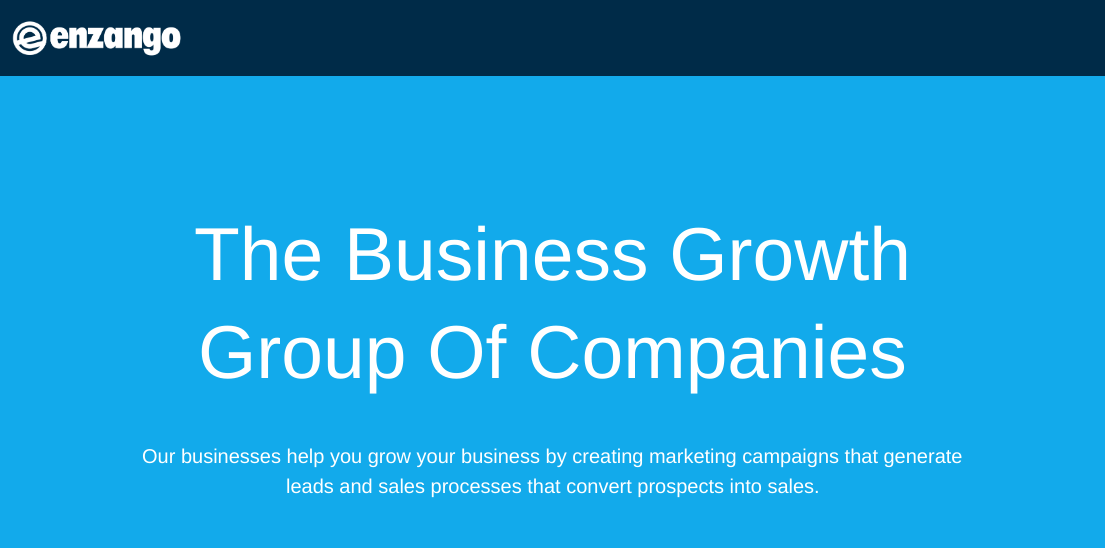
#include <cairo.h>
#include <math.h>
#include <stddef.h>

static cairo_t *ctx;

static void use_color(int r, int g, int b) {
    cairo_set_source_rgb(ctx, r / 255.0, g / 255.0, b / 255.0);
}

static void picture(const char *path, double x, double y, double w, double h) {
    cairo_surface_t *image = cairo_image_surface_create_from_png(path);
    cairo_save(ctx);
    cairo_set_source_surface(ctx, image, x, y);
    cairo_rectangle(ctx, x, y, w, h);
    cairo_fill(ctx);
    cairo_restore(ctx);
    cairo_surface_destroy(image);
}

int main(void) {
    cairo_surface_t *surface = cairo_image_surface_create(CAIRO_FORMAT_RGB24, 1105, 548);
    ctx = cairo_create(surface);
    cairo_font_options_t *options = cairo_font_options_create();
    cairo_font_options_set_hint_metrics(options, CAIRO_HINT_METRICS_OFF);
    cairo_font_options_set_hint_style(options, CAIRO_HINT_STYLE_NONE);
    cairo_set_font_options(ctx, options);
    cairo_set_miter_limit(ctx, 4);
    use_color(18, 170, 235);
    cairo_paint(ctx);
    use_color(0, 43, 72);
    cairo_rectangle(ctx, 0, 0, 1105, 76);
    cairo_fill(ctx);
    picture("img1.png", 12, 21, 169, 35);
    cairo_select_font_face(ctx, "Liberation Sans", CAIRO_FONT_SLANT_NORMAL, CAIRO_FONT_WEIGHT_NORMAL);
    cairo_set_font_size(ctx, 75);
    use_color(255, 255, 255);
    cairo_move_to(ctx, 194, 280);
    cairo_show_text(ctx, "The Business Growth");
    cairo_move_to(ctx, 198, 378);
    cairo_show_text(ctx, "Group Of Companies");
    cairo_set_font_size(ctx, 20);
    cairo_move_to(ctx, 142, 463);
    cairo_show_text(ctx, "Our businesses help you grow your business by creating marketing campaigns that generate");
    cairo_move_to(ctx, 286, 493);
    cairo_show_text(ctx, "leads and sales processes that convert prospects into sales.");
    cairo_surface_write_to_png(surface, "result.png");
    cairo_font_options_destroy(options);
    cairo_destroy(ctx);
    cairo_surface_destroy(surface);
    return 0;
}
